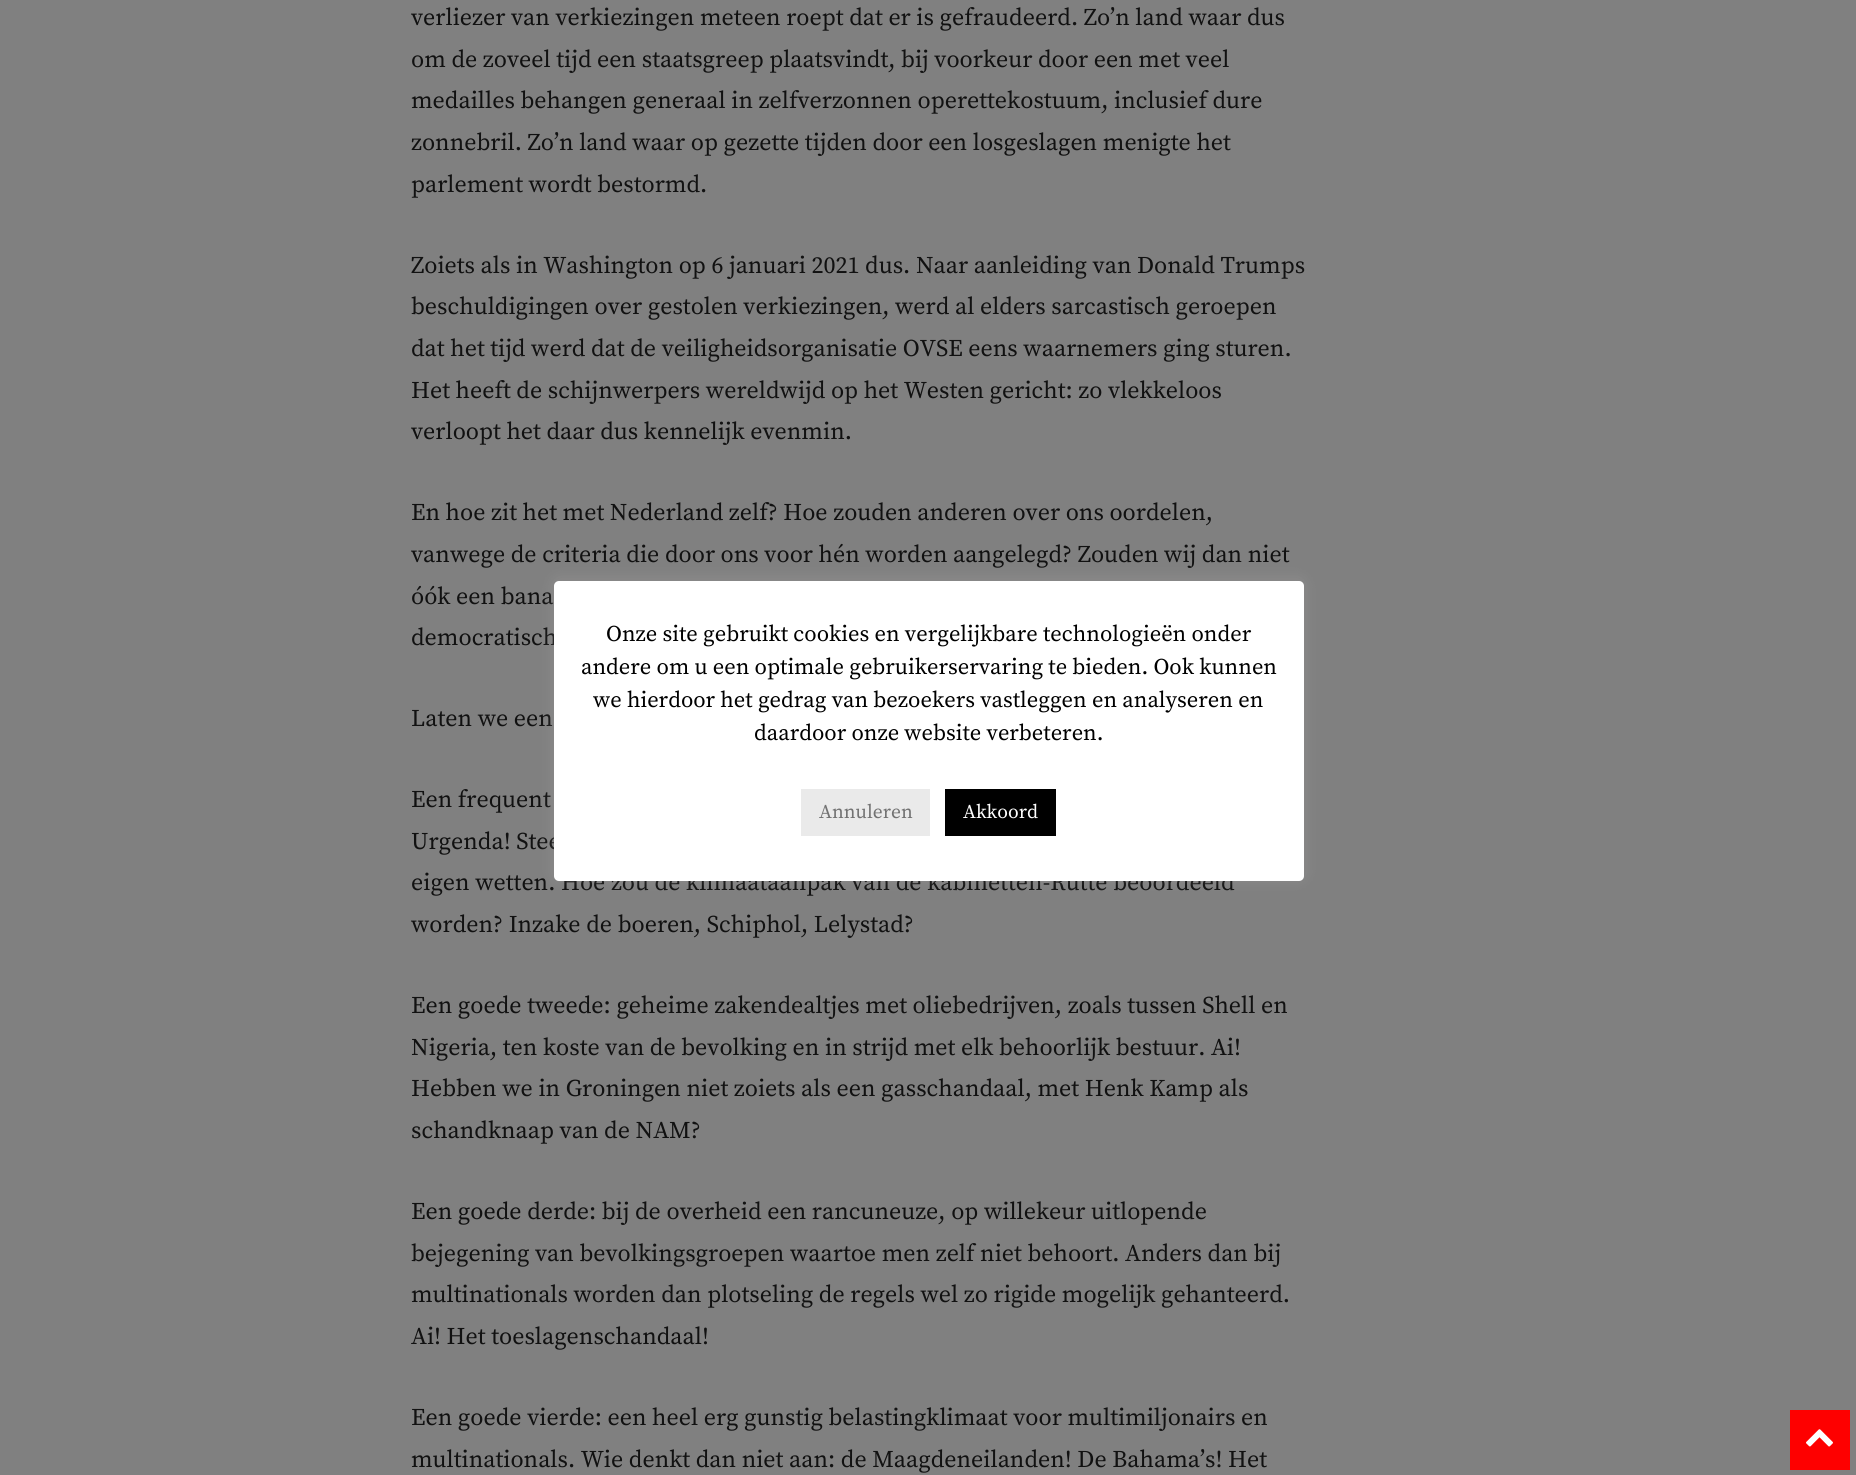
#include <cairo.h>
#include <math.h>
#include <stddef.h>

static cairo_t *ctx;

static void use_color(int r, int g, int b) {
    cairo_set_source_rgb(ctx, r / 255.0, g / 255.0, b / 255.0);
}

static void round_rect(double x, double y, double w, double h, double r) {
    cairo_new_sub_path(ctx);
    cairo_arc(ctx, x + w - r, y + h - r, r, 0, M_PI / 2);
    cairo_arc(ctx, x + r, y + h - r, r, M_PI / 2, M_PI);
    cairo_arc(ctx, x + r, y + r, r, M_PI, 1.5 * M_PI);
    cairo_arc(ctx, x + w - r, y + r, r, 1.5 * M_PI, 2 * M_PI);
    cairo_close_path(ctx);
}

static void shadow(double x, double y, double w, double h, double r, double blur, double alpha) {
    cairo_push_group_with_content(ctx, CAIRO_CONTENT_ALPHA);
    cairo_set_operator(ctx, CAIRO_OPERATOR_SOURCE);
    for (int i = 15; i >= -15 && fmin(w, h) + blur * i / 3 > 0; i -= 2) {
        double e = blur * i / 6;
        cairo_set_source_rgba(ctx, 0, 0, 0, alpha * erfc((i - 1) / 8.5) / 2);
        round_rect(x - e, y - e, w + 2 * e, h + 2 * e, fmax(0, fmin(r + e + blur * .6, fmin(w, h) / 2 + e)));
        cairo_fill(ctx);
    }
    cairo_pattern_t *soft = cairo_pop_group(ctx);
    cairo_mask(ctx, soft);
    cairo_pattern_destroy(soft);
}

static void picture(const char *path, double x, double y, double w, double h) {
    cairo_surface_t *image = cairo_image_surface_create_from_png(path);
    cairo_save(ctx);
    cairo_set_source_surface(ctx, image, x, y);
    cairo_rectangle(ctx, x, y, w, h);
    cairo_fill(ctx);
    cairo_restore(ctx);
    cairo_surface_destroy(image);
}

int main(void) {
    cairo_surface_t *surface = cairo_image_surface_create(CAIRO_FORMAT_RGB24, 1856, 1475);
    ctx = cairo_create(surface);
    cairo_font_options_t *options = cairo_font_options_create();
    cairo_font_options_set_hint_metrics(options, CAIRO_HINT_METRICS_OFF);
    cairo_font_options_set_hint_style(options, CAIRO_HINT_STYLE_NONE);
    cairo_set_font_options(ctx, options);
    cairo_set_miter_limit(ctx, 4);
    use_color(128, 128, 128);
    cairo_paint(ctx);
    cairo_select_font_face(ctx, "Source Serif Pro", CAIRO_FONT_SLANT_NORMAL, CAIRO_FONT_WEIGHT_NORMAL);
    cairo_set_font_size(ctx, 24);
    use_color(17, 17, 17);
    cairo_move_to(ctx, 411, 25);
    cairo_show_text(ctx, "verliezer van verkiezingen meteen roept dat er is gefraudeerd. Zo’n land waar dus");
    cairo_move_to(ctx, 411, 67);
    cairo_show_text(ctx, "om de zoveel tijd een staatsgreep plaatsvindt, bij voorkeur door een met veel");
    cairo_move_to(ctx, 411, 108);
    cairo_show_text(ctx, "medailles behangen generaal in zelfverzonnen operettekostuum, inclusief dure");
    cairo_move_to(ctx, 411, 150);
    cairo_show_text(ctx, "zonnebril. Zo’n land waar op gezette tijden door een losgeslagen menigte het");
    cairo_move_to(ctx, 411, 192);
    cairo_show_text(ctx, "parlement wordt bestormd.");
    cairo_move_to(ctx, 411, 273);
    cairo_show_text(ctx, "Zoiets als in Washington op 6 januari 2021 dus. Naar aanleiding van Donald Trumps");
    cairo_move_to(ctx, 411, 314);
    cairo_show_text(ctx, "beschuldigingen over gestolen verkiezingen, werd al elders sarcastisch geroepen");
    cairo_move_to(ctx, 411, 356);
    cairo_show_text(ctx, "dat het tijd werd dat de veiligheidsorganisatie OVSE eens waarnemers ging sturen.");
    cairo_move_to(ctx, 411, 398);
    cairo_show_text(ctx, "Het heeft de schijnwerpers wereldwijd op het Westen gericht: zo vlekkeloos");
    cairo_move_to(ctx, 411, 439);
    cairo_show_text(ctx, "verloopt het daar dus kennelijk evenmin.");
    cairo_move_to(ctx, 411, 520);
    cairo_show_text(ctx, "En hoe zit het met Nederland zelf? Hoe zouden anderen over ons oordelen,");
    cairo_move_to(ctx, 411, 562);
    cairo_show_text(ctx, "vanwege de criteria die door ons voor hén worden aangelegd? Zouden wij dan niet");
    cairo_move_to(ctx, 411, 604);
    cairo_show_text(ctx, "óók een bana");
    cairo_move_to(ctx, 411, 645);
    cairo_show_text(ctx, "democratisch");
    cairo_move_to(ctx, 411, 726);
    cairo_show_text(ctx, "Laten we een");
    cairo_move_to(ctx, 411, 807);
    cairo_show_text(ctx, "Een frequent");
    cairo_move_to(ctx, 411, 849);
    cairo_show_text(ctx, "Urgenda! Stee");
    cairo_move_to(ctx, 411, 890);
    cairo_show_text(ctx, "eigen wetten. Hoe zou de klimaataanpak van de kabinetten-Rutte beoordeeld");
    cairo_move_to(ctx, 411, 932);
    cairo_show_text(ctx, "worden? Inzake de boeren, Schiphol, Lelystad?");
    cairo_move_to(ctx, 411, 1013);
    cairo_show_text(ctx, "Een goede tweede: geheime zakendealtjes met oliebedrijven, zoals tussen Shell en");
    cairo_move_to(ctx, 411, 1055);
    cairo_show_text(ctx, "Nigeria, ten koste van de bevolking en in strijd met elk behoorlijk bestuur. Ai!");
    cairo_move_to(ctx, 411, 1096);
    cairo_show_text(ctx, "Hebben we in Groningen niet zoiets als een gasschandaal, met Henk Kamp als");
    cairo_move_to(ctx, 411, 1138);
    cairo_show_text(ctx, "schandknaap van de NAM?");
    cairo_move_to(ctx, 411, 1219);
    cairo_show_text(ctx, "Een goede derde: bij de overheid een rancuneuze, op willekeur uitlopende");
    cairo_move_to(ctx, 411, 1261);
    cairo_show_text(ctx, "bejegening van bevolkingsgroepen waartoe men zelf niet behoort. Anders dan bij");
    cairo_move_to(ctx, 411, 1302);
    cairo_show_text(ctx, "multinationals worden dan plotseling de regels wel zo rigide mogelijk gehanteerd.");
    cairo_move_to(ctx, 411, 1344);
    cairo_show_text(ctx, "Ai! Het toeslagenschandaal!");
    cairo_move_to(ctx, 411, 1425);
    cairo_show_text(ctx, "Een goede vierde: een heel erg gunstig belastingklimaat voor multimiljonairs en");
    cairo_move_to(ctx, 411, 1467);
    cairo_show_text(ctx, "multinationals. Wie denkt dan niet aan: de Maagdeneilanden! De Bahama’s! Het");
    use_color(172, 171, 171);
    shadow(554, 579, 750, 300, 5, 7.5, 0.3);
    use_color(255, 255, 255);
    round_rect(554, 581, 750, 300, 5);
    cairo_fill(ctx);
    cairo_set_font_size(ctx, 22.5);
    use_color(0, 0, 0);
    cairo_move_to(ctx, 606, 641);
    cairo_show_text(ctx, "Onze site gebruikt cookies en vergelijkbare technologieën onder");
    cairo_move_to(ctx, 581, 674);
    cairo_show_text(ctx, "andere om u een optimale gebruikerservaring te bieden. Ook kunnen");
    cairo_move_to(ctx, 593, 707);
    cairo_show_text(ctx, "we hierdoor het gedrag van bezoekers vastleggen en analyseren en");
    cairo_move_to(ctx, 754, 740);
    cairo_show_text(ctx, "daardoor onze website verbeteren.");
    use_color(234, 234, 234);
    cairo_rectangle(ctx, 801, 789, 129, 47);
    cairo_fill(ctx);
    cairo_set_font_size(ctx, 19.5);
    use_color(114, 114, 114);
    cairo_move_to(ctx, 819, 818);
    cairo_show_text(ctx, "Annuleren");
    use_color(0, 0, 0);
    cairo_rectangle(ctx, 945, 789, 111, 47);
    cairo_fill(ctx);
    use_color(255, 255, 255);
    cairo_move_to(ctx, 963, 818);
    cairo_show_text(ctx, "Akkoord");
    use_color(254, 0, 0);
    cairo_rectangle(ctx, 1790, 1410, 60, 60);
    cairo_fill(ctx);
    picture("img1.png", 1806, 1429, 27, 18);
    cairo_surface_write_to_png(surface, "result.png");
    cairo_font_options_destroy(options);
    cairo_destroy(ctx);
    cairo_surface_destroy(surface);
    return 0;
}
